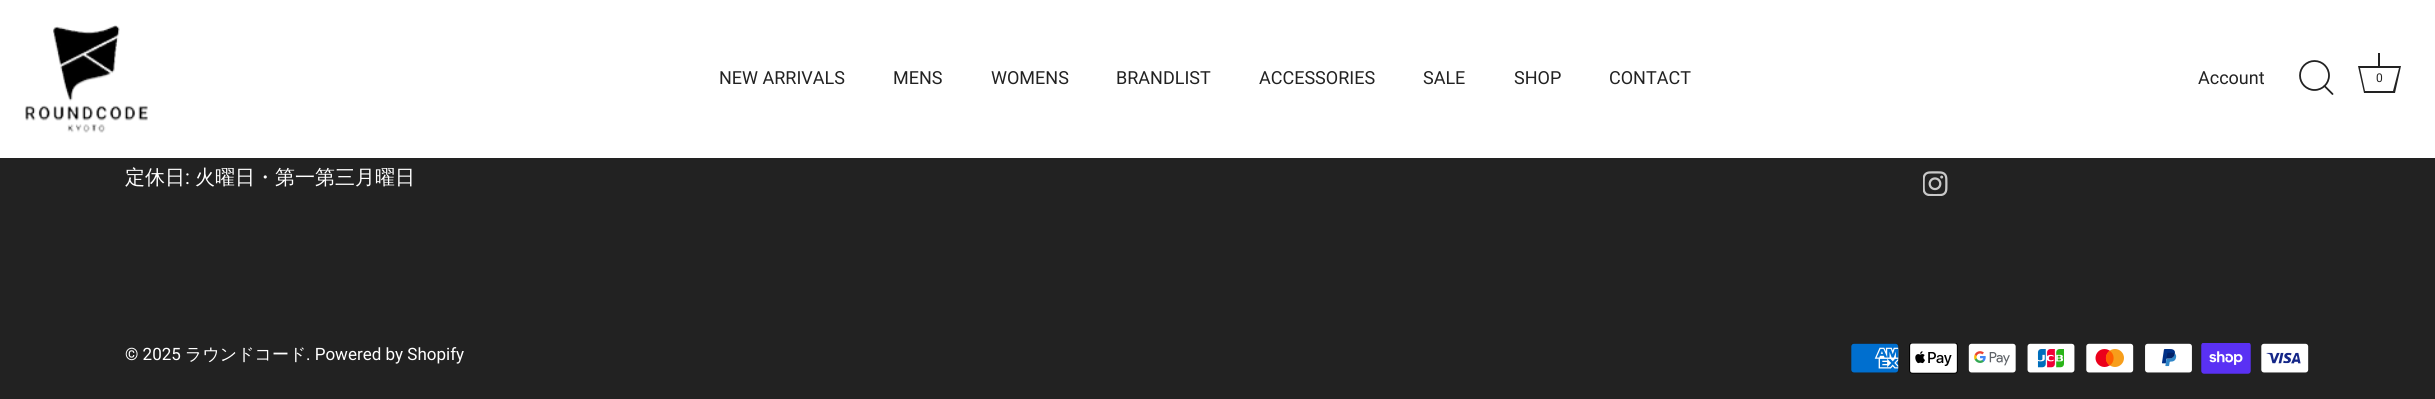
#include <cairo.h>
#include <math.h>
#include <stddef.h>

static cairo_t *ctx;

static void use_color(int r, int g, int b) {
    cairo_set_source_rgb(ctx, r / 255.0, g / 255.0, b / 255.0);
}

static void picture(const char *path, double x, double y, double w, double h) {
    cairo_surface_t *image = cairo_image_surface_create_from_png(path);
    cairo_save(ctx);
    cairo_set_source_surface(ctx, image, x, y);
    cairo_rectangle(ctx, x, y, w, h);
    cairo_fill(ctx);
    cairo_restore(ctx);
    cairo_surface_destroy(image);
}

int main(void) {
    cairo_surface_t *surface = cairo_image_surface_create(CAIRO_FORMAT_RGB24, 2435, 399);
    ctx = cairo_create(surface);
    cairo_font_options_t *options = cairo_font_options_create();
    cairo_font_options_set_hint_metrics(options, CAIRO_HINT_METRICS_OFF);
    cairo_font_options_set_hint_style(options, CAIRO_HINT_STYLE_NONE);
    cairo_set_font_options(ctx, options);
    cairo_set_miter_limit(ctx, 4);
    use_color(34, 34, 34);
    cairo_paint(ctx);
    use_color(255, 255, 255);
    cairo_rectangle(ctx, 0, 0, 2435, 158);
    cairo_fill(ctx);
    picture("img1.png", 25, 25, 123, 108);
    cairo_select_font_face(ctx, "Roboto", CAIRO_FONT_SLANT_NORMAL, CAIRO_FONT_WEIGHT_NORMAL);
    cairo_set_font_size(ctx, 18);
    use_color(34, 34, 34);
    cairo_move_to(ctx, 719, 84);
    cairo_show_text(ctx, "NEW ARRIVALS");
    cairo_move_to(ctx, 893, 84);
    cairo_show_text(ctx, "MENS");
    cairo_move_to(ctx, 991, 84);
    cairo_show_text(ctx, "WOMENS");
    cairo_move_to(ctx, 1116, 84);
    cairo_show_text(ctx, "BRANDLIST");
    cairo_move_to(ctx, 1259, 84);
    cairo_show_text(ctx, "ACCESSORIES");
    cairo_move_to(ctx, 1423, 84);
    cairo_show_text(ctx, "SALE");
    cairo_move_to(ctx, 1514, 84);
    cairo_show_text(ctx, "SHOP");
    cairo_move_to(ctx, 1609, 84);
    cairo_show_text(ctx, "CONTACT");
    cairo_move_to(ctx, 2198, 84);
    cairo_show_text(ctx, "Account");
    cairo_new_path(ctx);
    cairo_arc(ctx, 2314.5, 75.5, 14.5, 0, 2 * M_PI);
    cairo_set_line_width(ctx, 1.8);
    cairo_stroke(ctx);
    cairo_new_path(ctx);
    cairo_move_to(ctx, 2332.5, 94);
    cairo_line_to(ctx, 2324.5, 86);
    cairo_set_line_cap(ctx, CAIRO_LINE_CAP_ROUND);
    cairo_set_line_join(ctx, CAIRO_LINE_JOIN_ROUND);
    cairo_stroke(ctx);
    cairo_rectangle(ctx, 2378, 53, 2, 13);
    cairo_fill(ctx);
    cairo_new_path(ctx);
    cairo_move_to(ctx, 2399, 68);
    cairo_line_to(ctx, 2393, 91);
    cairo_line_to(ctx, 2365, 91);
    cairo_line_to(ctx, 2360, 68);
    cairo_line_to(ctx, 2399, 68);
    cairo_move_to(ctx, 2401, 66);
    cairo_line_to(ctx, 2358, 66);
    cairo_line_to(ctx, 2364, 93);
    cairo_line_to(ctx, 2395, 93);
    cairo_close_path(ctx);
    cairo_fill(ctx);
    cairo_set_font_size(ctx, 12);
    cairo_move_to(ctx, 2376, 82);
    cairo_show_text(ctx, "0");
    cairo_select_font_face(ctx, "WenQuanYi Zen Hei Medium", CAIRO_FONT_SLANT_NORMAL, CAIRO_FONT_WEIGHT_NORMAL);
    cairo_set_font_size(ctx, 20);
    use_color(255, 255, 255);
    cairo_move_to(ctx, 125, 184);
    cairo_show_text(ctx, "定休日");
    cairo_select_font_face(ctx, "Roboto", CAIRO_FONT_SLANT_NORMAL, CAIRO_FONT_WEIGHT_NORMAL);
    cairo_move_to(ctx, 185, 184);
    cairo_show_text(ctx, ":");
    cairo_select_font_face(ctx, "WenQuanYi Zen Hei Medium", CAIRO_FONT_SLANT_NORMAL, CAIRO_FONT_WEIGHT_NORMAL);
    cairo_move_to(ctx, 195, 184);
    cairo_show_text(ctx, "火曜日・第一第三月曜日");
    picture("img2.png", 1923, 171, 25, 25);
    cairo_select_font_face(ctx, "Roboto", CAIRO_FONT_SLANT_NORMAL, CAIRO_FONT_WEIGHT_NORMAL);
    cairo_set_font_size(ctx, 17);
    cairo_move_to(ctx, 125, 360);
    cairo_show_text(ctx, "© 2025");
    cairo_select_font_face(ctx, "WenQuanYi Zen Hei Medium", CAIRO_FONT_SLANT_NORMAL, CAIRO_FONT_WEIGHT_NORMAL);
    cairo_move_to(ctx, 185, 360);
    cairo_show_text(ctx, "ラウンドコード");
    cairo_select_font_face(ctx, "Roboto", CAIRO_FONT_SLANT_NORMAL, CAIRO_FONT_WEIGHT_NORMAL);
    cairo_move_to(ctx, 306, 360);
    cairo_show_text(ctx, ". Powered by Shopify");
    picture("img3.png", 1851, 343, 48, 30);
    picture("img4.png", 1909, 343, 49, 31);
    picture("img5.png", 1968, 343, 48, 30);
    picture("img6.png", 2027, 343, 48, 30);
    picture("img7.png", 2086, 343, 48, 30);
    picture("img8.png", 2145, 343, 47, 30);
    picture("img9.png", 2201, 343, 50, 31);
    picture("img10.png", 2261, 343, 48, 30);
    cairo_surface_write_to_png(surface, "result.png");
    cairo_font_options_destroy(options);
    cairo_destroy(ctx);
    cairo_surface_destroy(surface);
    return 0;
}
